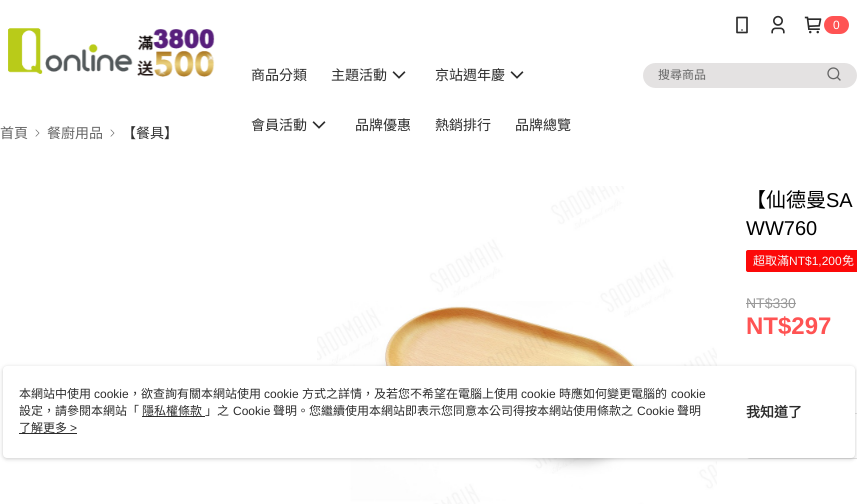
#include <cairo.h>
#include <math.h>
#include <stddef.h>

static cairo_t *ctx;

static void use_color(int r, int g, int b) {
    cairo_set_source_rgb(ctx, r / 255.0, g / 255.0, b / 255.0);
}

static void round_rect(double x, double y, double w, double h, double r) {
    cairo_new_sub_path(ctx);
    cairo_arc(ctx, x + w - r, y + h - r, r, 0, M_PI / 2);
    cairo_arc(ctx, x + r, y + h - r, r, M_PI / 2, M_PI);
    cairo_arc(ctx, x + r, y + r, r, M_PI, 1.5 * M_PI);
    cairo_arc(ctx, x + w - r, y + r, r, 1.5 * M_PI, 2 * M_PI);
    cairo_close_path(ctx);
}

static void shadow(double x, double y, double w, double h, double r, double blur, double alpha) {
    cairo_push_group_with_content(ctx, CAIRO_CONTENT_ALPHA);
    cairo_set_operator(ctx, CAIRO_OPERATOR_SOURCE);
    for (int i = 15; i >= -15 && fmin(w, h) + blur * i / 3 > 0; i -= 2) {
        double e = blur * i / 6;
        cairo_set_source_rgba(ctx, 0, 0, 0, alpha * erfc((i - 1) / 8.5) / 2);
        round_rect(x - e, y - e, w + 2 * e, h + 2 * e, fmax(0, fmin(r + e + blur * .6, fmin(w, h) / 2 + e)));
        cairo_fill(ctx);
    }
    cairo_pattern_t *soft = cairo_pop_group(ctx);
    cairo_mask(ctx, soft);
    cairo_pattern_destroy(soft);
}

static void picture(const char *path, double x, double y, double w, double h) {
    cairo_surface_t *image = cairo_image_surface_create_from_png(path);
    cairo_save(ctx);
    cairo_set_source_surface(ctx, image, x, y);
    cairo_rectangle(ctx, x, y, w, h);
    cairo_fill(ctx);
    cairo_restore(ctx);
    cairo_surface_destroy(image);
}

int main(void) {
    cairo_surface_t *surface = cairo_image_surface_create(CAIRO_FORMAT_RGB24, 857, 504);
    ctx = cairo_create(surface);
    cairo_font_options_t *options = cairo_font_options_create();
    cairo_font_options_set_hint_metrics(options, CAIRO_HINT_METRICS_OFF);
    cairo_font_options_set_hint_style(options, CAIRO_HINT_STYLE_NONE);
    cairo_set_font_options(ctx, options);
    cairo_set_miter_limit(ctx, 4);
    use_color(255, 255, 255);
    cairo_paint(ctx);
    picture("img1.png", 8, 28, 207, 49);
    picture("img2.png", 736, 16, 12, 18);
    picture("img3.png", 771, 15, 14, 19);
    picture("img4.png", 804, 16, 18, 18);
    use_color(255, 83, 83);
    round_rect(824, 16, 25, 18, 9);
    cairo_fill(ctx);
    cairo_select_font_face(ctx, "Liberation Sans", CAIRO_FONT_SLANT_NORMAL, CAIRO_FONT_WEIGHT_NORMAL);
    cairo_set_font_size(ctx, 12);
    use_color(255, 255, 255);
    cairo_move_to(ctx, 833, 29);
    cairo_show_text(ctx, "0");
    cairo_select_font_face(ctx, "Noto Sans CJK TC", CAIRO_FONT_SLANT_NORMAL, CAIRO_FONT_WEIGHT_NORMAL);
    cairo_set_font_size(ctx, 14);
    use_color(44, 44, 44);
    cairo_move_to(ctx, 251, 80);
    cairo_show_text(ctx, "商品分類");
    cairo_move_to(ctx, 331, 80);
    cairo_show_text(ctx, "主題活動");
    picture("img5.png", 392, 71, 14, 8);
    cairo_move_to(ctx, 435, 80);
    cairo_show_text(ctx, "京站週年慶");
    picture("img5.png", 510, 71, 14, 8);
    cairo_move_to(ctx, 251, 130);
    cairo_show_text(ctx, "會員活動");
    picture("img5.png", 312, 121, 14, 8);
    cairo_move_to(ctx, 355, 130);
    cairo_show_text(ctx, "品牌優惠");
    cairo_move_to(ctx, 435, 130);
    cairo_show_text(ctx, "熱銷排行");
    cairo_move_to(ctx, 515, 130);
    cairo_show_text(ctx, "品牌總覽");
    use_color(228, 226, 226);
    round_rect(643, 63, 214, 25, 12.5);
    cairo_fill(ctx);
    cairo_set_font_size(ctx, 12);
    use_color(102, 102, 102);
    cairo_move_to(ctx, 658, 79);
    cairo_show_text(ctx, "搜尋商品");
    picture("img6.png", 827, 67, 14, 14);
    cairo_set_font_size(ctx, 14);
    cairo_move_to(ctx, 0, 138);
    cairo_show_text(ctx, "首頁");
    picture("img7.png", 35, 129, 5, 8);
    cairo_move_to(ctx, 47, 138);
    cairo_show_text(ctx, "餐廚用品");
    picture("img7.png", 110, 129, 5, 8);
    use_color(51, 51, 51);
    cairo_move_to(ctx, 122, 138);
    cairo_show_text(ctx, "【餐具】");
    picture("img8.png", 317, 186, 400, 318);
    cairo_set_font_size(ctx, 20);
    use_color(0, 0, 0);
    cairo_move_to(ctx, 746, 207);
    cairo_show_text(ctx, "【仙德曼");
    cairo_select_font_face(ctx, "Liberation Sans", CAIRO_FONT_SLANT_NORMAL, CAIRO_FONT_WEIGHT_NORMAL);
    cairo_move_to(ctx, 826, 207);
    cairo_show_text(ctx, "SA");
    cairo_move_to(ctx, 746, 235);
    cairo_show_text(ctx, "WW760");
    use_color(252, 9, 9);
    round_rect(746.5, 250.5, 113, 21, 1.5);
    cairo_fill_preserve(ctx);
    cairo_set_line_width(ctx, 1);
    cairo_stroke(ctx);
    cairo_select_font_face(ctx, "Noto Sans CJK TC", CAIRO_FONT_SLANT_NORMAL, CAIRO_FONT_WEIGHT_NORMAL);
    cairo_set_font_size(ctx, 12);
    use_color(248, 247, 247);
    cairo_move_to(ctx, 753, 265);
    cairo_show_text(ctx, "超取滿");
    cairo_select_font_face(ctx, "Liberation Sans", CAIRO_FONT_SLANT_NORMAL, CAIRO_FONT_WEIGHT_NORMAL);
    cairo_move_to(ctx, 789, 265);
    cairo_show_text(ctx, "NT$1,200");
    cairo_select_font_face(ctx, "Noto Sans CJK TC", CAIRO_FONT_SLANT_NORMAL, CAIRO_FONT_WEIGHT_NORMAL);
    cairo_move_to(ctx, 842, 265);
    cairo_show_text(ctx, "免");
    cairo_select_font_face(ctx, "Liberation Sans", CAIRO_FONT_SLANT_NORMAL, CAIRO_FONT_WEIGHT_NORMAL);
    cairo_set_font_size(ctx, 14);
    use_color(153, 153, 153);
    cairo_move_to(ctx, 746, 308);
    cairo_show_text(ctx, "NT$330");
    cairo_rectangle(ctx, 746, 303, 50, 1);
    cairo_fill(ctx);
    cairo_select_font_face(ctx, "Liberation Sans", CAIRO_FONT_SLANT_NORMAL, CAIRO_FONT_WEIGHT_BOLD);
    cairo_set_font_size(ctx, 24);
    use_color(255, 83, 83);
    cairo_move_to(ctx, 746, 334);
    cairo_show_text(ctx, "NT$297");
    round_rect(746.5, 413.5, 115, 45, 3.5);
    use_color(221, 221, 221);
    cairo_stroke(ctx);
    use_color(151, 151, 151);
    shadow(3, 367, 852, 92, 4, 2, 0.5);
    use_color(255, 255, 255);
    round_rect(3, 366, 852, 92, 4);
    cairo_fill(ctx);
    cairo_select_font_face(ctx, "Noto Sans CJK TC", CAIRO_FONT_SLANT_NORMAL, CAIRO_FONT_WEIGHT_NORMAL);
    cairo_set_font_size(ctx, 12);
    use_color(44, 44, 44);
    cairo_move_to(ctx, 19, 398);
    cairo_show_text(ctx, "本網站中使用");
    cairo_select_font_face(ctx, "Liberation Sans", CAIRO_FONT_SLANT_NORMAL, CAIRO_FONT_WEIGHT_NORMAL);
    cairo_move_to(ctx, 94, 398);
    cairo_show_text(ctx, "cookie");
    cairo_select_font_face(ctx, "Noto Sans CJK TC", CAIRO_FONT_SLANT_NORMAL, CAIRO_FONT_WEIGHT_NORMAL);
    cairo_move_to(ctx, 129, 398);
    cairo_show_text(ctx, "，欲查詢有關本網站使用");
    cairo_select_font_face(ctx, "Liberation Sans", CAIRO_FONT_SLANT_NORMAL, CAIRO_FONT_WEIGHT_NORMAL);
    cairo_move_to(ctx, 264, 398);
    cairo_show_text(ctx, "cookie");
    cairo_select_font_face(ctx, "Noto Sans CJK TC", CAIRO_FONT_SLANT_NORMAL, CAIRO_FONT_WEIGHT_NORMAL);
    cairo_move_to(ctx, 302, 398);
    cairo_show_text(ctx, "方式之詳情，及若您不希望在電腦上使用");
    cairo_select_font_face(ctx, "Liberation Sans", CAIRO_FONT_SLANT_NORMAL, CAIRO_FONT_WEIGHT_NORMAL);
    cairo_move_to(ctx, 521, 398);
    cairo_show_text(ctx, "cookie");
    cairo_select_font_face(ctx, "Noto Sans CJK TC", CAIRO_FONT_SLANT_NORMAL, CAIRO_FONT_WEIGHT_NORMAL);
    cairo_move_to(ctx, 559, 398);
    cairo_show_text(ctx, "時應如何變更電腦的");
    cairo_select_font_face(ctx, "Liberation Sans", CAIRO_FONT_SLANT_NORMAL, CAIRO_FONT_WEIGHT_NORMAL);
    cairo_move_to(ctx, 671, 398);
    cairo_show_text(ctx, "cookie");
    cairo_select_font_face(ctx, "Noto Sans CJK TC", CAIRO_FONT_SLANT_NORMAL, CAIRO_FONT_WEIGHT_NORMAL);
    cairo_move_to(ctx, 19, 415);
    cairo_show_text(ctx, "設定，請參閱本網站「");
    cairo_move_to(ctx, 142, 415);
    cairo_show_text(ctx, "隱私權條款");
    cairo_rectangle(ctx, 142, 416, 63, 1);
    cairo_fill(ctx);
    cairo_move_to(ctx, 205, 415);
    cairo_show_text(ctx, "」之");
    cairo_select_font_face(ctx, "Liberation Sans", CAIRO_FONT_SLANT_NORMAL, CAIRO_FONT_WEIGHT_NORMAL);
    cairo_move_to(ctx, 233, 415);
    cairo_show_text(ctx, "Cookie");
    cairo_select_font_face(ctx, "Noto Sans CJK TC", CAIRO_FONT_SLANT_NORMAL, CAIRO_FONT_WEIGHT_NORMAL);
    cairo_move_to(ctx, 273, 415);
    cairo_show_text(ctx, "聲明。您繼續使用本網站即表示您同意本公司得按本網站使用條款之");
    cairo_select_font_face(ctx, "Liberation Sans", CAIRO_FONT_SLANT_NORMAL, CAIRO_FONT_WEIGHT_NORMAL);
    cairo_move_to(ctx, 637, 415);
    cairo_show_text(ctx, "Cookie");
    cairo_select_font_face(ctx, "Noto Sans CJK TC", CAIRO_FONT_SLANT_NORMAL, CAIRO_FONT_WEIGHT_NORMAL);
    cairo_move_to(ctx, 677, 415);
    cairo_show_text(ctx, "聲明");
    cairo_move_to(ctx, 19, 432);
    cairo_show_text(ctx, "了解更多");
    cairo_select_font_face(ctx, "Liberation Sans", CAIRO_FONT_SLANT_NORMAL, CAIRO_FONT_WEIGHT_NORMAL);
    cairo_move_to(ctx, 70, 432);
    cairo_show_text(ctx, ">");
    cairo_rectangle(ctx, 19, 433, 58, 1);
    cairo_fill(ctx);
    cairo_select_font_face(ctx, "Noto Sans CJK TC", CAIRO_FONT_SLANT_NORMAL, CAIRO_FONT_WEIGHT_BOLD);
    cairo_set_font_size(ctx, 14);
    cairo_move_to(ctx, 746, 417);
    cairo_show_text(ctx, "我知道了");
    cairo_surface_write_to_png(surface, "result.png");
    cairo_font_options_destroy(options);
    cairo_destroy(ctx);
    cairo_surface_destroy(surface);
    return 0;
}
